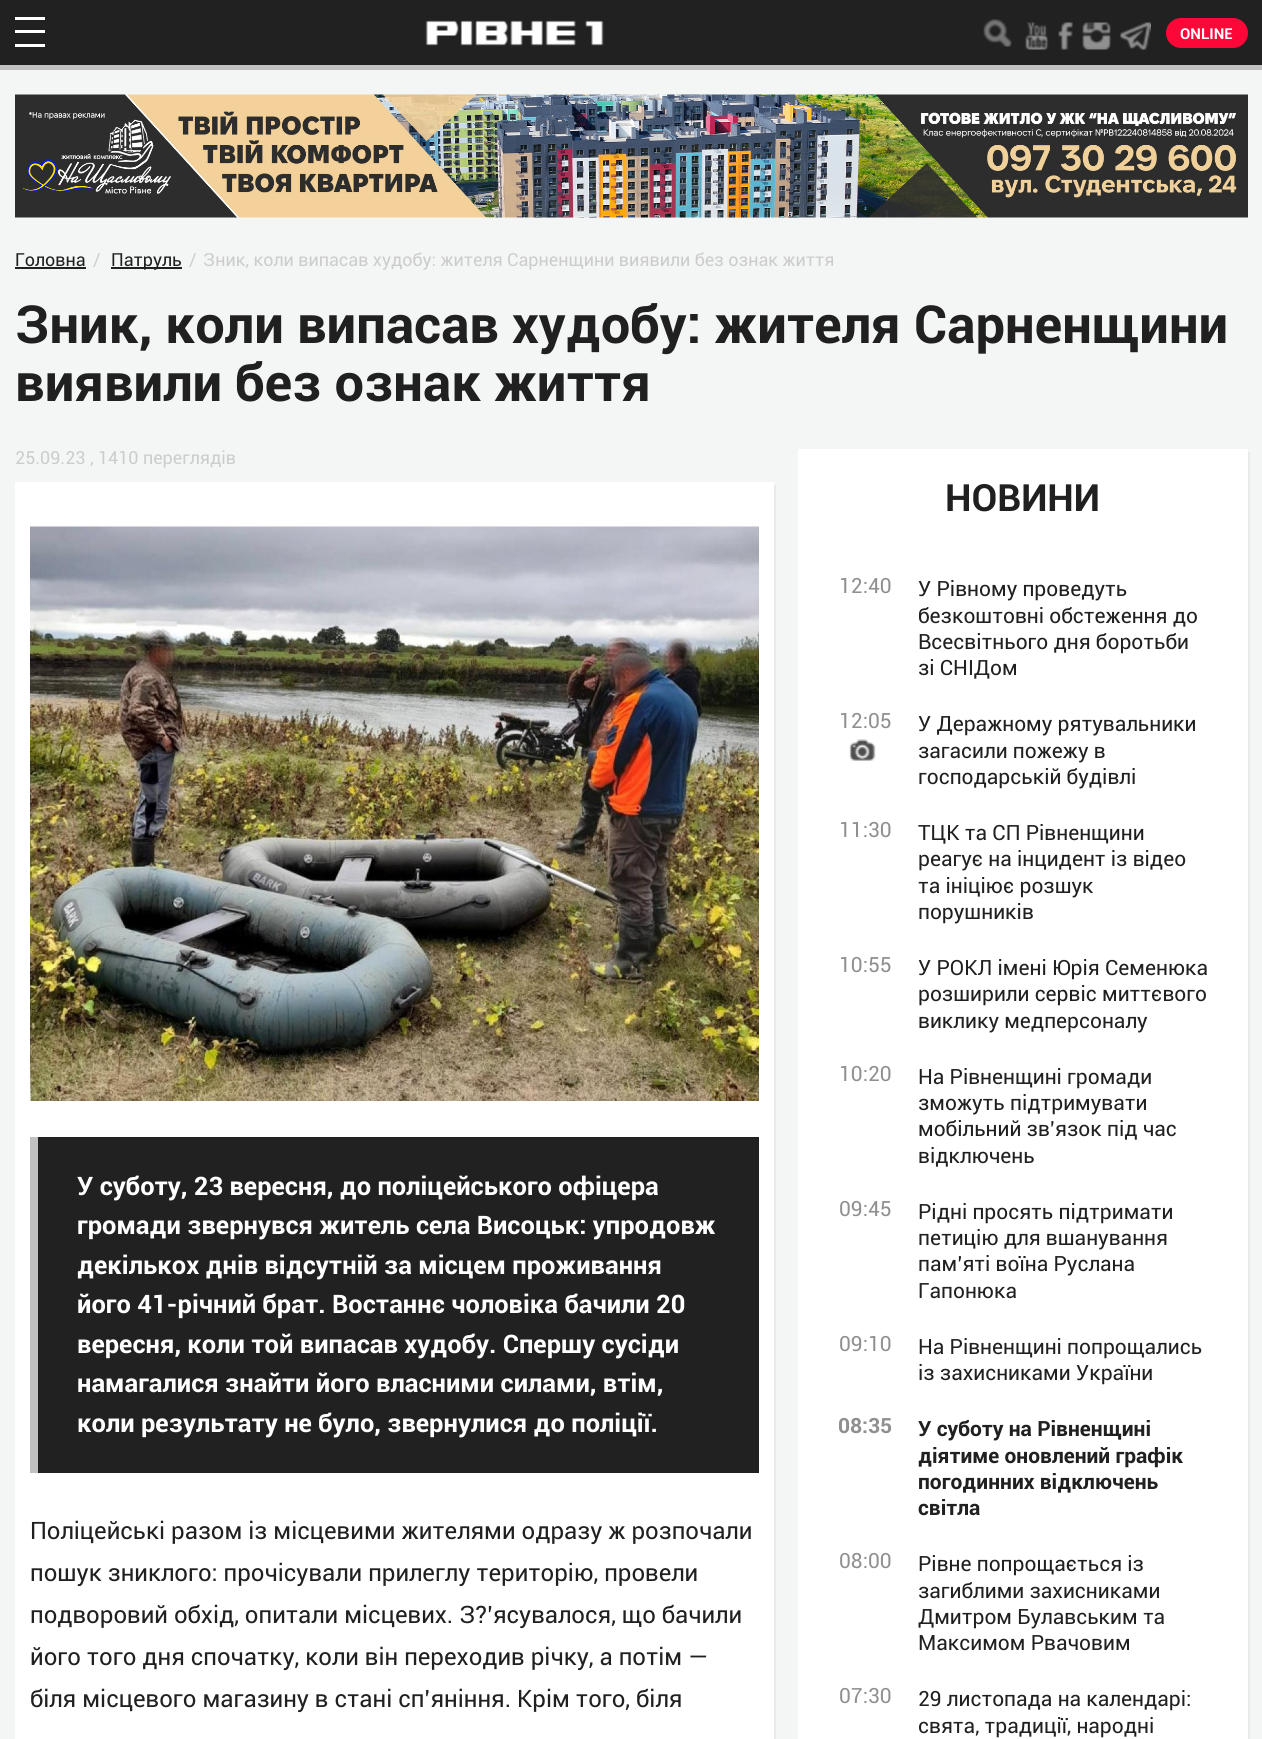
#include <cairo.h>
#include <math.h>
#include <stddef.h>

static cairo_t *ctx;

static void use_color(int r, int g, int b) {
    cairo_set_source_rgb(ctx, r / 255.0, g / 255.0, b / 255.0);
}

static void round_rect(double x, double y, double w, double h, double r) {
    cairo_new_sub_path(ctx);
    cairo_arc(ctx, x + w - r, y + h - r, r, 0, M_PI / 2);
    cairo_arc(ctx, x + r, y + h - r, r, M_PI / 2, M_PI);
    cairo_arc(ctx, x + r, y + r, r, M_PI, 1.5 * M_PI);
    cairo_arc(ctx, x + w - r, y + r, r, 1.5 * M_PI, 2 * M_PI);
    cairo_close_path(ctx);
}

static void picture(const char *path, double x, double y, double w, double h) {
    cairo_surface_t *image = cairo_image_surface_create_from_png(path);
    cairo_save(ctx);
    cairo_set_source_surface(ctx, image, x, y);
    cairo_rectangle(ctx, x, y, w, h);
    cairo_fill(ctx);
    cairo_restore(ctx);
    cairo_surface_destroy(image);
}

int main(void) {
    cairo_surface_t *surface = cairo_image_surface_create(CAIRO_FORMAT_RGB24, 1262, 1739);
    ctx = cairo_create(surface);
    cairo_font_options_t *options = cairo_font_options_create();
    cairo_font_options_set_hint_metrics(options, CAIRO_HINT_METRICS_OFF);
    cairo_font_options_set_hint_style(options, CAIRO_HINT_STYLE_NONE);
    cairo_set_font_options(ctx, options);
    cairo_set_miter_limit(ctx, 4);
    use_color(244, 246, 245);
    cairo_paint(ctx);
    use_color(33, 33, 33);
    cairo_rectangle(ctx, 0, 0, 1262, 65);
    cairo_fill(ctx);
    use_color(193, 193, 193);
    cairo_rectangle(ctx, 0, 65, 1262, 5);
    cairo_fill(ctx);
    use_color(255, 255, 255);
    cairo_rectangle(ctx, 15, 17, 30, 3);
    cairo_fill(ctx);
    cairo_rectangle(ctx, 15, 30, 30, 3);
    cairo_fill(ctx);
    cairo_rectangle(ctx, 15, 44, 30, 3);
    cairo_fill(ctx);
    picture("img1.png", 425, 20, 179, 26);
    picture("img2.png", 983, 19, 29, 28);
    picture("img3.png", 1025, 22, 24, 28);
    picture("img4.png", 1058, 22, 15, 28);
    picture("img5.png", 1082, 22, 29, 28);
    picture("img6.png", 1120, 22, 31, 28);
    use_color(253, 6, 56);
    round_rect(1166, 18, 82, 30, 15);
    cairo_fill(ctx);
    cairo_select_font_face(ctx, "Roboto", CAIRO_FONT_SLANT_NORMAL, CAIRO_FONT_WEIGHT_BOLD);
    cairo_set_font_size(ctx, 15);
    use_color(255, 255, 255);
    cairo_move_to(ctx, 1180, 39);
    cairo_show_text(ctx, "ONLINE");
    picture("img7.png", 15, 94, 1233, 124);
    cairo_select_font_face(ctx, "Roboto", CAIRO_FONT_SLANT_NORMAL, CAIRO_FONT_WEIGHT_NORMAL);
    cairo_set_font_size(ctx, 18);
    use_color(32, 32, 32);
    cairo_move_to(ctx, 15, 266);
    cairo_show_text(ctx, "Головна");
    cairo_rectangle(ctx, 15, 267, 71, 2);
    cairo_fill(ctx);
    use_color(204, 204, 204);
    cairo_move_to(ctx, 93, 266);
    cairo_show_text(ctx, "/");
    use_color(32, 32, 32);
    cairo_rectangle(ctx, 111, 267, 71, 2);
    cairo_fill(ctx);
    cairo_move_to(ctx, 111, 266);
    cairo_show_text(ctx, "Патруль");
    use_color(204, 204, 204);
    cairo_move_to(ctx, 189, 266);
    cairo_show_text(ctx, "/");
    cairo_move_to(ctx, 203, 266);
    cairo_show_text(ctx, "Зник, коли випасав худобу: жителя Сарненщини виявили без ознак життя");
    cairo_select_font_face(ctx, "Roboto", CAIRO_FONT_SLANT_NORMAL, CAIRO_FONT_WEIGHT_BOLD);
    cairo_set_font_size(ctx, 52.5);
    use_color(32, 32, 32);
    cairo_move_to(ctx, 15, 343);
    cairo_show_text(ctx, "Зник, коли випасав худобу: жителя Сарненщини");
    cairo_move_to(ctx, 15, 401);
    cairo_show_text(ctx, "виявили без ознак життя");
    cairo_select_font_face(ctx, "Roboto", CAIRO_FONT_SLANT_NORMAL, CAIRO_FONT_WEIGHT_NORMAL);
    cairo_set_font_size(ctx, 18);
    use_color(204, 204, 204);
    cairo_move_to(ctx, 15, 464);
    cairo_show_text(ctx, "25.09.23 , 1410 переглядів");
    use_color(232, 234, 233);
    cairo_new_path(ctx);
    cairo_move_to(ctx, 17, 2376);
    cairo_line_to(ctx, 17, 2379);
    cairo_line_to(ctx, 776, 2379);
    cairo_line_to(ctx, 776, 485);
    cairo_line_to(ctx, 774, 485);
    cairo_line_to(ctx, 774, 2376);
    cairo_close_path(ctx);
    cairo_fill(ctx);
    use_color(255, 255, 255);
    cairo_rectangle(ctx, 15, 482, 759, 1257);
    cairo_fill(ctx);
    picture("img8.png", 30, 526, 729, 575);
    use_color(33, 33, 33);
    cairo_rectangle(ctx, 38, 1137, 721, 336);
    cairo_fill(ctx);
    use_color(193, 193, 193);
    cairo_rectangle(ctx, 30, 1137, 8, 336);
    cairo_fill(ctx);
    cairo_select_font_face(ctx, "Roboto", CAIRO_FONT_SLANT_NORMAL, CAIRO_FONT_WEIGHT_BOLD);
    cairo_set_font_size(ctx, 25.5);
    use_color(255, 255, 255);
    cairo_move_to(ctx, 77, 1195);
    cairo_show_text(ctx, "У суботу, 23 вересня, до поліцейського офіцера");
    cairo_move_to(ctx, 77, 1234);
    cairo_show_text(ctx, "громади звернувся житель села Висоцьк: упродовж");
    cairo_move_to(ctx, 77, 1274);
    cairo_show_text(ctx, "декількох днів відсутній за місцем проживання");
    cairo_move_to(ctx, 77, 1313);
    cairo_show_text(ctx, "його 41-річний брат. Востаннє чоловіка бачили 20");
    cairo_move_to(ctx, 77, 1353);
    cairo_show_text(ctx, "вересня, коли той випасав худобу. Спершу сусіди");
    cairo_move_to(ctx, 77, 1392);
    cairo_show_text(ctx, "намагалися знайти його власними силами, втім,");
    cairo_move_to(ctx, 77, 1432);
    cairo_show_text(ctx, "коли результату не було, звернулися до поліції.");
    cairo_select_font_face(ctx, "Roboto", CAIRO_FONT_SLANT_NORMAL, CAIRO_FONT_WEIGHT_NORMAL);
    cairo_set_font_size(ctx, 24);
    use_color(32, 32, 32);
    cairo_move_to(ctx, 30, 1539);
    cairo_show_text(ctx, "Поліцейські разом із місцевими жителями одразу ж розпочали");
    cairo_move_to(ctx, 30, 1581);
    cairo_show_text(ctx, "пошук зниклого: прочісували прилеглу територію, провели");
    cairo_move_to(ctx, 30, 1623);
    cairo_show_text(ctx, "подворовий обхід, опитали місцевих. З?’ясувалося, що бачили");
    cairo_move_to(ctx, 30, 1665);
    cairo_show_text(ctx, "його того дня спочатку, коли він переходив річку, а потім —");
    cairo_move_to(ctx, 30, 1707);
    cairo_show_text(ctx, "біля місцевого магазину в стані сп’яніння. Крім того, біля");
    use_color(232, 234, 233);
    cairo_new_path(ctx);
    cairo_move_to(ctx, 800, 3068);
    cairo_line_to(ctx, 800, 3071);
    cairo_line_to(ctx, 1250, 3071);
    cairo_line_to(ctx, 1250, 452);
    cairo_line_to(ctx, 1248, 452);
    cairo_line_to(ctx, 1248, 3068);
    cairo_close_path(ctx);
    cairo_fill(ctx);
    use_color(255, 255, 255);
    cairo_rectangle(ctx, 798, 449, 450, 1290);
    cairo_fill(ctx);
    cairo_select_font_face(ctx, "Roboto", CAIRO_FONT_SLANT_NORMAL, CAIRO_FONT_WEIGHT_BOLD);
    cairo_set_font_size(ctx, 37.5);
    use_color(32, 32, 32);
    cairo_move_to(ctx, 945, 511);
    cairo_show_text(ctx, "НОВИНИ");
    cairo_select_font_face(ctx, "Roboto", CAIRO_FONT_SLANT_NORMAL, CAIRO_FONT_WEIGHT_NORMAL);
    cairo_set_font_size(ctx, 21);
    use_color(144, 144, 144);
    cairo_move_to(ctx, 839, 593);
    cairo_show_text(ctx, "12:40");
    use_color(32, 32, 32);
    cairo_move_to(ctx, 918, 596);
    cairo_show_text(ctx, "У Рівному проведуть");
    cairo_move_to(ctx, 918, 623);
    cairo_show_text(ctx, "безкоштовні обстеження до");
    cairo_move_to(ctx, 918, 649);
    cairo_show_text(ctx, "Всесвітнього дня боротьби");
    cairo_move_to(ctx, 918, 675);
    cairo_show_text(ctx, "зі СНІДом");
    use_color(144, 144, 144);
    cairo_move_to(ctx, 839, 728);
    cairo_show_text(ctx, "12:05");
    picture("img9.png", 849, 739, 27, 22);
    use_color(32, 32, 32);
    cairo_move_to(ctx, 918, 731);
    cairo_show_text(ctx, "У Деражному рятувальники");
    cairo_move_to(ctx, 918, 758);
    cairo_show_text(ctx, "загасили пожежу в");
    cairo_move_to(ctx, 918, 784);
    cairo_show_text(ctx, "господарській будівлі");
    use_color(144, 144, 144);
    cairo_move_to(ctx, 839, 837);
    cairo_show_text(ctx, "11:30");
    use_color(32, 32, 32);
    cairo_move_to(ctx, 918, 840);
    cairo_show_text(ctx, "ТЦК та СП Рівненщини");
    cairo_move_to(ctx, 918, 866);
    cairo_show_text(ctx, "реагує на інцидент із відео");
    cairo_move_to(ctx, 918, 893);
    cairo_show_text(ctx, "та ініціює розшук");
    cairo_move_to(ctx, 918, 919);
    cairo_show_text(ctx, "порушників");
    use_color(144, 144, 144);
    cairo_move_to(ctx, 839, 972);
    cairo_show_text(ctx, "10:55");
    use_color(32, 32, 32);
    cairo_move_to(ctx, 918, 975);
    cairo_show_text(ctx, "У РОКЛ імені Юрія Семенюка");
    cairo_move_to(ctx, 918, 1001);
    cairo_show_text(ctx, "розширили сервіс миттєвого");
    cairo_move_to(ctx, 918, 1028);
    cairo_show_text(ctx, "виклику медперсоналу");
    use_color(144, 144, 144);
    cairo_move_to(ctx, 839, 1081);
    cairo_show_text(ctx, "10:20");
    use_color(32, 32, 32);
    cairo_move_to(ctx, 918, 1084);
    cairo_show_text(ctx, "На Рівненщині громади");
    cairo_move_to(ctx, 918, 1110);
    cairo_show_text(ctx, "зможуть підтримувати");
    cairo_move_to(ctx, 918, 1136);
    cairo_show_text(ctx, "мобільний зв’язок під час");
    cairo_move_to(ctx, 918, 1163);
    cairo_show_text(ctx, "відключень");
    use_color(144, 144, 144);
    cairo_move_to(ctx, 839, 1216);
    cairo_show_text(ctx, "09:45");
    use_color(32, 32, 32);
    cairo_move_to(ctx, 918, 1219);
    cairo_show_text(ctx, "Рідні просять підтримати");
    cairo_move_to(ctx, 918, 1245);
    cairo_show_text(ctx, "петицію для вшанування");
    cairo_move_to(ctx, 918, 1271);
    cairo_show_text(ctx, "пам’яті воїна Руслана");
    cairo_move_to(ctx, 918, 1298);
    cairo_show_text(ctx, "Гапонюка");
    use_color(144, 144, 144);
    cairo_move_to(ctx, 839, 1351);
    cairo_show_text(ctx, "09:10");
    use_color(32, 32, 32);
    cairo_move_to(ctx, 918, 1354);
    cairo_show_text(ctx, "На Рівненщині попрощались");
    cairo_move_to(ctx, 918, 1380);
    cairo_show_text(ctx, "із захисниками України");
    cairo_select_font_face(ctx, "Roboto", CAIRO_FONT_SLANT_NORMAL, CAIRO_FONT_WEIGHT_BOLD);
    use_color(144, 144, 144);
    cairo_move_to(ctx, 838, 1433);
    cairo_show_text(ctx, "08:35");
    use_color(32, 32, 32);
    cairo_move_to(ctx, 918, 1436);
    cairo_show_text(ctx, "У суботу на Рівненщині");
    cairo_move_to(ctx, 918, 1463);
    cairo_show_text(ctx, "діятиме оновлений графік");
    cairo_move_to(ctx, 918, 1489);
    cairo_show_text(ctx, "погодинних відключень");
    cairo_move_to(ctx, 918, 1515);
    cairo_show_text(ctx, "світла");
    cairo_select_font_face(ctx, "Roboto", CAIRO_FONT_SLANT_NORMAL, CAIRO_FONT_WEIGHT_NORMAL);
    use_color(144, 144, 144);
    cairo_move_to(ctx, 839, 1568);
    cairo_show_text(ctx, "08:00");
    use_color(32, 32, 32);
    cairo_move_to(ctx, 918, 1571);
    cairo_show_text(ctx, "Рівне попрощається із");
    cairo_move_to(ctx, 918, 1598);
    cairo_show_text(ctx, "загиблими захисниками");
    cairo_move_to(ctx, 918, 1624);
    cairo_show_text(ctx, "Дмитром Булавським та");
    cairo_move_to(ctx, 918, 1650);
    cairo_show_text(ctx, "Максимом Рвачовим");
    use_color(144, 144, 144);
    cairo_move_to(ctx, 839, 1703);
    cairo_show_text(ctx, "07:30");
    use_color(32, 32, 32);
    cairo_move_to(ctx, 918, 1706);
    cairo_show_text(ctx, "29 листопада на календарі:");
    cairo_move_to(ctx, 918, 1733);
    cairo_show_text(ctx, "свята, традиції, народні");
    cairo_surface_write_to_png(surface, "result.png");
    cairo_font_options_destroy(options);
    cairo_destroy(ctx);
    cairo_surface_destroy(surface);
    return 0;
}
